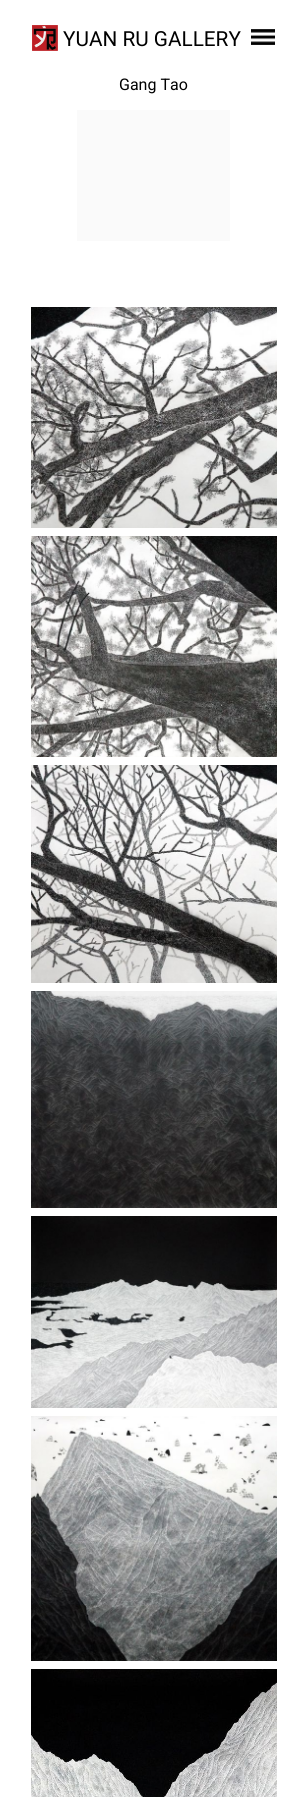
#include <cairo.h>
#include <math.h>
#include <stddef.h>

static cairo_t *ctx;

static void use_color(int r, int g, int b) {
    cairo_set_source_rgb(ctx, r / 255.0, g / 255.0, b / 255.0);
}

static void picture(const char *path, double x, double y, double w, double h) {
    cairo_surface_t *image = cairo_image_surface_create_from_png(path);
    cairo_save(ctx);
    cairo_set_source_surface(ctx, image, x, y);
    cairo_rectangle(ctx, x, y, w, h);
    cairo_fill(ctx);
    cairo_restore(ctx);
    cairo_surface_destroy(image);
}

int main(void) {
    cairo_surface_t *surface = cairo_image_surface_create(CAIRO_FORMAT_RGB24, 307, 1797);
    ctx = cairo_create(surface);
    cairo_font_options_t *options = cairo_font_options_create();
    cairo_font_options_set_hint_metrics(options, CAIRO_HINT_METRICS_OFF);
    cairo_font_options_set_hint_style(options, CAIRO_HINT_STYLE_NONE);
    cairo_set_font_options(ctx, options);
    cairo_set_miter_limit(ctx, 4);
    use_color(255, 255, 255);
    cairo_paint(ctx);
    picture("img1.png", 32, 25, 26, 26);
    cairo_select_font_face(ctx, "Roboto", CAIRO_FONT_SLANT_NORMAL, CAIRO_FONT_WEIGHT_NORMAL);
    cairo_set_font_size(ctx, 20.75);
    use_color(0, 0, 0);
    cairo_move_to(ctx, 63, 46);
    cairo_show_text(ctx, "YUAN RU GALLERY");
    picture("img2.png", 251, 29, 24, 16);
    cairo_set_font_size(ctx, 16);
    cairo_move_to(ctx, 119, 90);
    cairo_show_text(ctx, "Gang Tao");
    use_color(250, 250, 250);
    cairo_rectangle(ctx, 77, 110, 153, 131);
    cairo_fill(ctx);
    picture("img3.png", 31, 307, 246, 221);
    picture("img4.png", 31, 536, 246, 221);
    picture("img5.png", 31, 765, 246, 218);
    picture("img6.png", 31, 991, 246, 217);
    picture("img7.png", 31, 1216, 246, 192);
    picture("img8.png", 31, 1416, 246, 245);
    picture("img9.png", 31, 1669, 246, 128);
    cairo_surface_write_to_png(surface, "result.png");
    cairo_font_options_destroy(options);
    cairo_destroy(ctx);
    cairo_surface_destroy(surface);
    return 0;
}
